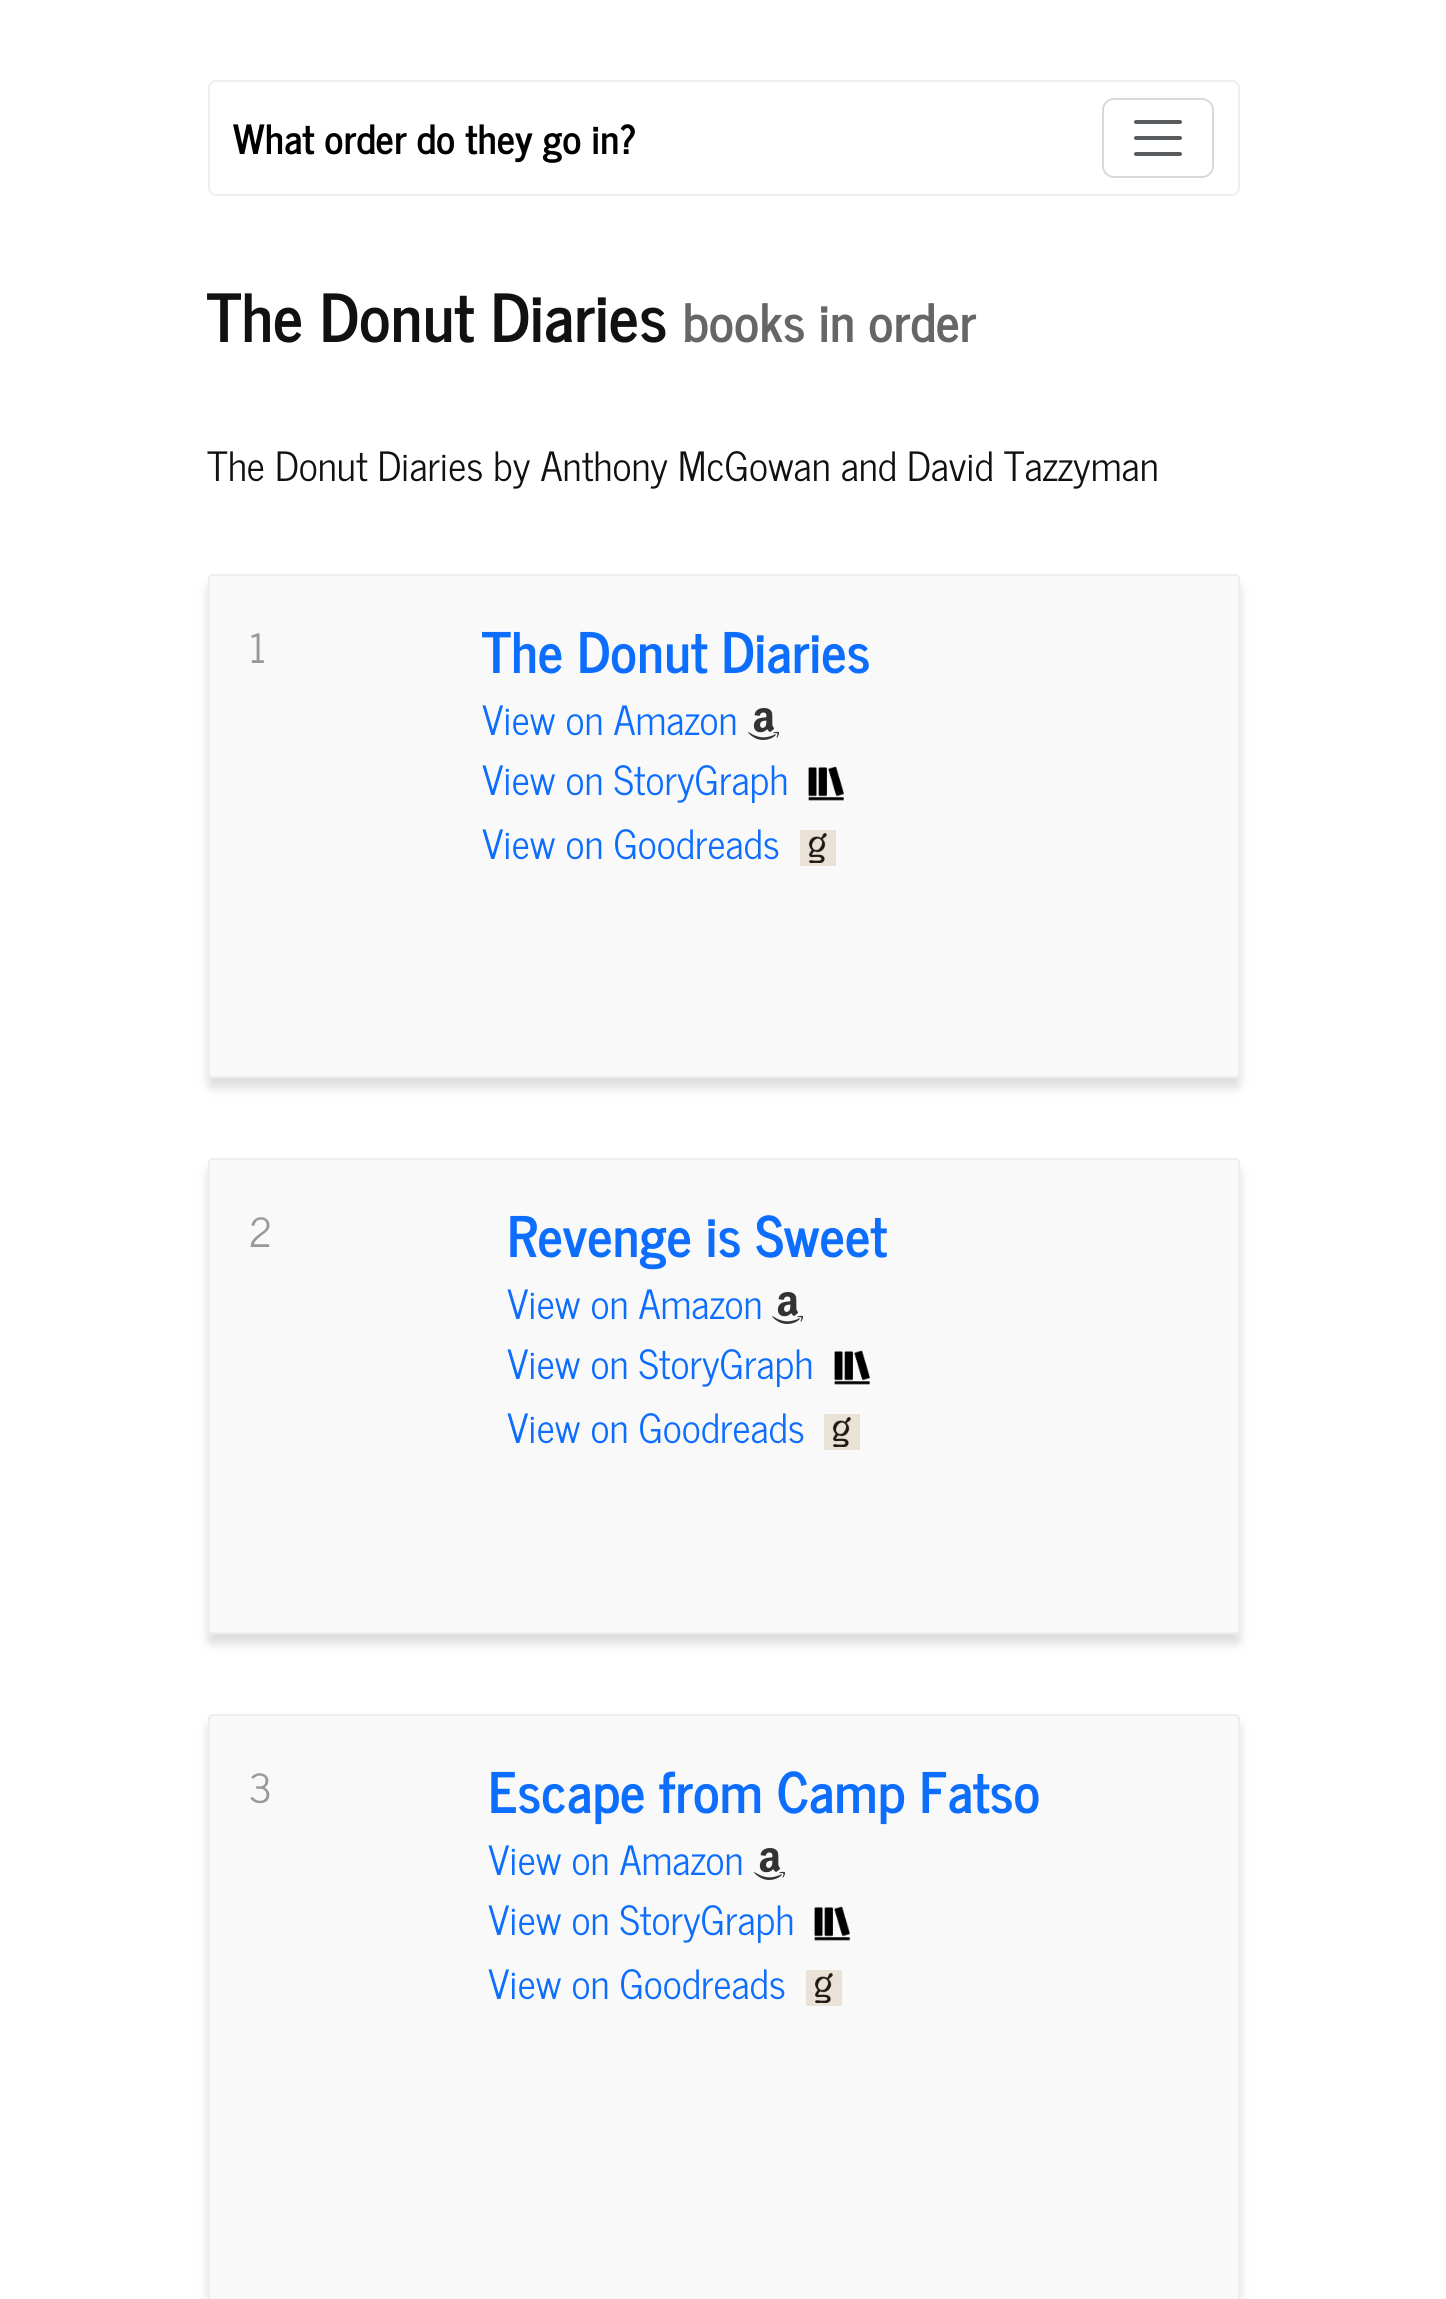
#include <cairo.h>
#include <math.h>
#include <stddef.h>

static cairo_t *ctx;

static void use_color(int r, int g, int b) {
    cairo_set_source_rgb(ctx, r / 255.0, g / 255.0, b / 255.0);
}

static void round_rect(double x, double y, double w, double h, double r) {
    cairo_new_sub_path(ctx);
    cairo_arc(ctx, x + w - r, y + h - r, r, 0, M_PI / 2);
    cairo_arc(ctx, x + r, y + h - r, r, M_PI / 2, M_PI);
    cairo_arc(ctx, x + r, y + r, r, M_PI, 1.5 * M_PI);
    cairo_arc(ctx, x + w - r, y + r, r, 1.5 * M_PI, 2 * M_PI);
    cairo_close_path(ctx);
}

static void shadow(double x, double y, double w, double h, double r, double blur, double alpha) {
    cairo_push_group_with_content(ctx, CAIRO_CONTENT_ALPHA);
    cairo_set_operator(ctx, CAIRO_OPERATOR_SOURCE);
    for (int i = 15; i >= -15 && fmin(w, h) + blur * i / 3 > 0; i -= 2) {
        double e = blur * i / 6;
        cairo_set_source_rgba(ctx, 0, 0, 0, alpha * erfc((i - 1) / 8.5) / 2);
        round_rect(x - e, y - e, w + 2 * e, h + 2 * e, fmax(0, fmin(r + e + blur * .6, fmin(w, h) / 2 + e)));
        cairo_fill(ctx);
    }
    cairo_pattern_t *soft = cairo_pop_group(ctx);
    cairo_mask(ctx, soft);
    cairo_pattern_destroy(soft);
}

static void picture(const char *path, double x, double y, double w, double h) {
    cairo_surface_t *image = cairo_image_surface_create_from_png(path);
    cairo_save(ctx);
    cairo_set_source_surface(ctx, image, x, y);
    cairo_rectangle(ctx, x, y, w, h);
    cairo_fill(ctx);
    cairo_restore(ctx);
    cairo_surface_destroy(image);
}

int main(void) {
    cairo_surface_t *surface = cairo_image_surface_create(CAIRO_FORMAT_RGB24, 1446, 2299);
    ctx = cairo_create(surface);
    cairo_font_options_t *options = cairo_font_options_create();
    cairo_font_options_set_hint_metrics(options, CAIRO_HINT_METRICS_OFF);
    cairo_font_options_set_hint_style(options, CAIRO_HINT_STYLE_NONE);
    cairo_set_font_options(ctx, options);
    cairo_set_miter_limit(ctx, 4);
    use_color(255, 255, 255);
    cairo_paint(ctx);
    round_rect(209, 81, 1030, 114, 7);
    use_color(238, 238, 238);
    cairo_stroke(ctx);
    cairo_select_font_face(ctx, "News Cycle", CAIRO_FONT_SLANT_NORMAL, CAIRO_FONT_WEIGHT_BOLD);
    cairo_set_font_size(ctx, 40);
    use_color(0, 0, 0);
    cairo_move_to(ctx, 233, 154);
    cairo_show_text(ctx, "What order do they go in?");
    round_rect(1103, 99, 110, 78, 11);
    use_color(217, 217, 217);
    cairo_stroke(ctx);
    cairo_new_path(ctx);
    cairo_move_to(ctx, 1136, 122);
    cairo_line_to(ctx, 1180, 122);
    cairo_move_to(ctx, 1136, 138);
    cairo_line_to(ctx, 1180, 138);
    cairo_move_to(ctx, 1136, 154);
    cairo_line_to(ctx, 1180, 154);
    use_color(89, 92, 95);
    cairo_set_line_width(ctx, 4);
    cairo_set_line_cap(ctx, CAIRO_LINE_CAP_ROUND);
    cairo_stroke(ctx);
    cairo_set_font_size(ctx, 65.75);
    use_color(17, 17, 17);
    cairo_move_to(ctx, 207, 342);
    cairo_show_text(ctx, "The Donut Diaries");
    cairo_set_font_size(ctx, 52.5);
    use_color(102, 102, 102);
    cairo_move_to(ctx, 683, 342);
    cairo_show_text(ctx, "books in order");
    cairo_select_font_face(ctx, "News Cycle", CAIRO_FONT_SLANT_NORMAL, CAIRO_FONT_WEIGHT_NORMAL);
    cairo_set_font_size(ctx, 40);
    use_color(17, 17, 17);
    cairo_move_to(ctx, 207, 481);
    cairo_show_text(ctx, "The Donut Diaries by Anthony McGowan and David Tazzyman");
    use_color(221, 221, 221);
    shadow(208, 584, 1032, 504, 4, 5, 1);
    use_color(249, 249, 249);
    round_rect(209, 575, 1030, 502, 3);
    cairo_fill_preserve(ctx);
    use_color(238, 238, 238);
    cairo_set_line_width(ctx, 2);
    cairo_set_line_cap(ctx, CAIRO_LINE_CAP_BUTT);
    cairo_stroke(ctx);
    use_color(153, 153, 153);
    cairo_move_to(ctx, 249, 663);
    cairo_show_text(ctx, "1");
    cairo_select_font_face(ctx, "News Cycle", CAIRO_FONT_SLANT_NORMAL, CAIRO_FONT_WEIGHT_BOLD);
    cairo_set_font_size(ctx, 55.5);
    use_color(13, 110, 253);
    cairo_move_to(ctx, 482, 673);
    cairo_show_text(ctx, "The Donut Diaries");
    cairo_select_font_face(ctx, "News Cycle", CAIRO_FONT_SLANT_NORMAL, CAIRO_FONT_WEIGHT_NORMAL);
    cairo_set_font_size(ctx, 40);
    cairo_move_to(ctx, 482, 735);
    cairo_show_text(ctx, "View on Amazon");
    picture("img1.png", 748, 708, 31, 32);
    cairo_move_to(ctx, 482, 795);
    cairo_show_text(ctx, "View on StoryGraph");
    picture("img2.png", 808, 766, 36, 35);
    cairo_move_to(ctx, 482, 859);
    cairo_show_text(ctx, "View on Goodreads");
    picture("img3.png", 800, 830, 36, 36);
    use_color(221, 221, 221);
    shadow(208, 1168, 1032, 476, 4, 5, 1);
    use_color(249, 249, 249);
    round_rect(209, 1159, 1030, 474, 3);
    cairo_fill_preserve(ctx);
    use_color(238, 238, 238);
    cairo_stroke(ctx);
    use_color(153, 153, 153);
    cairo_move_to(ctx, 249, 1247);
    cairo_show_text(ctx, "2");
    cairo_select_font_face(ctx, "News Cycle", CAIRO_FONT_SLANT_NORMAL, CAIRO_FONT_WEIGHT_BOLD);
    cairo_set_font_size(ctx, 55.5);
    use_color(13, 110, 253);
    cairo_move_to(ctx, 507, 1257);
    cairo_show_text(ctx, "Revenge is Sweet");
    cairo_select_font_face(ctx, "News Cycle", CAIRO_FONT_SLANT_NORMAL, CAIRO_FONT_WEIGHT_NORMAL);
    cairo_set_font_size(ctx, 40);
    cairo_move_to(ctx, 507, 1319);
    cairo_show_text(ctx, "View on Amazon");
    picture("img1.png", 772, 1292, 31, 32);
    cairo_move_to(ctx, 507, 1379);
    cairo_show_text(ctx, "View on StoryGraph");
    picture("img4.png", 834, 1350, 36, 35);
    cairo_move_to(ctx, 507, 1443);
    cairo_show_text(ctx, "View on Goodreads");
    picture("img5.png", 824, 1414, 36, 36);
    use_color(221, 221, 221);
    shadow(208, 1724, 1032, 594, 4, 5, 1);
    use_color(249, 249, 249);
    round_rect(209, 1715, 1030, 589, 3);
    cairo_fill_preserve(ctx);
    use_color(238, 238, 238);
    cairo_stroke(ctx);
    use_color(153, 153, 153);
    cairo_move_to(ctx, 249, 1803);
    cairo_show_text(ctx, "3");
    cairo_select_font_face(ctx, "News Cycle", CAIRO_FONT_SLANT_NORMAL, CAIRO_FONT_WEIGHT_BOLD);
    cairo_set_font_size(ctx, 55.5);
    use_color(13, 110, 253);
    cairo_move_to(ctx, 488, 1813);
    cairo_show_text(ctx, "Escape from Camp Fatso");
    cairo_select_font_face(ctx, "News Cycle", CAIRO_FONT_SLANT_NORMAL, CAIRO_FONT_WEIGHT_NORMAL);
    cairo_set_font_size(ctx, 40);
    cairo_move_to(ctx, 488, 1875);
    cairo_show_text(ctx, "View on Amazon");
    picture("img1.png", 754, 1848, 31, 32);
    cairo_move_to(ctx, 488, 1935);
    cairo_show_text(ctx, "View on StoryGraph");
    picture("img6.png", 814, 1906, 36, 35);
    cairo_move_to(ctx, 488, 1999);
    cairo_show_text(ctx, "View on Goodreads");
    picture("img3.png", 806, 1970, 36, 36);
    cairo_surface_write_to_png(surface, "result.png");
    cairo_font_options_destroy(options);
    cairo_destroy(ctx);
    cairo_surface_destroy(surface);
    return 0;
}
